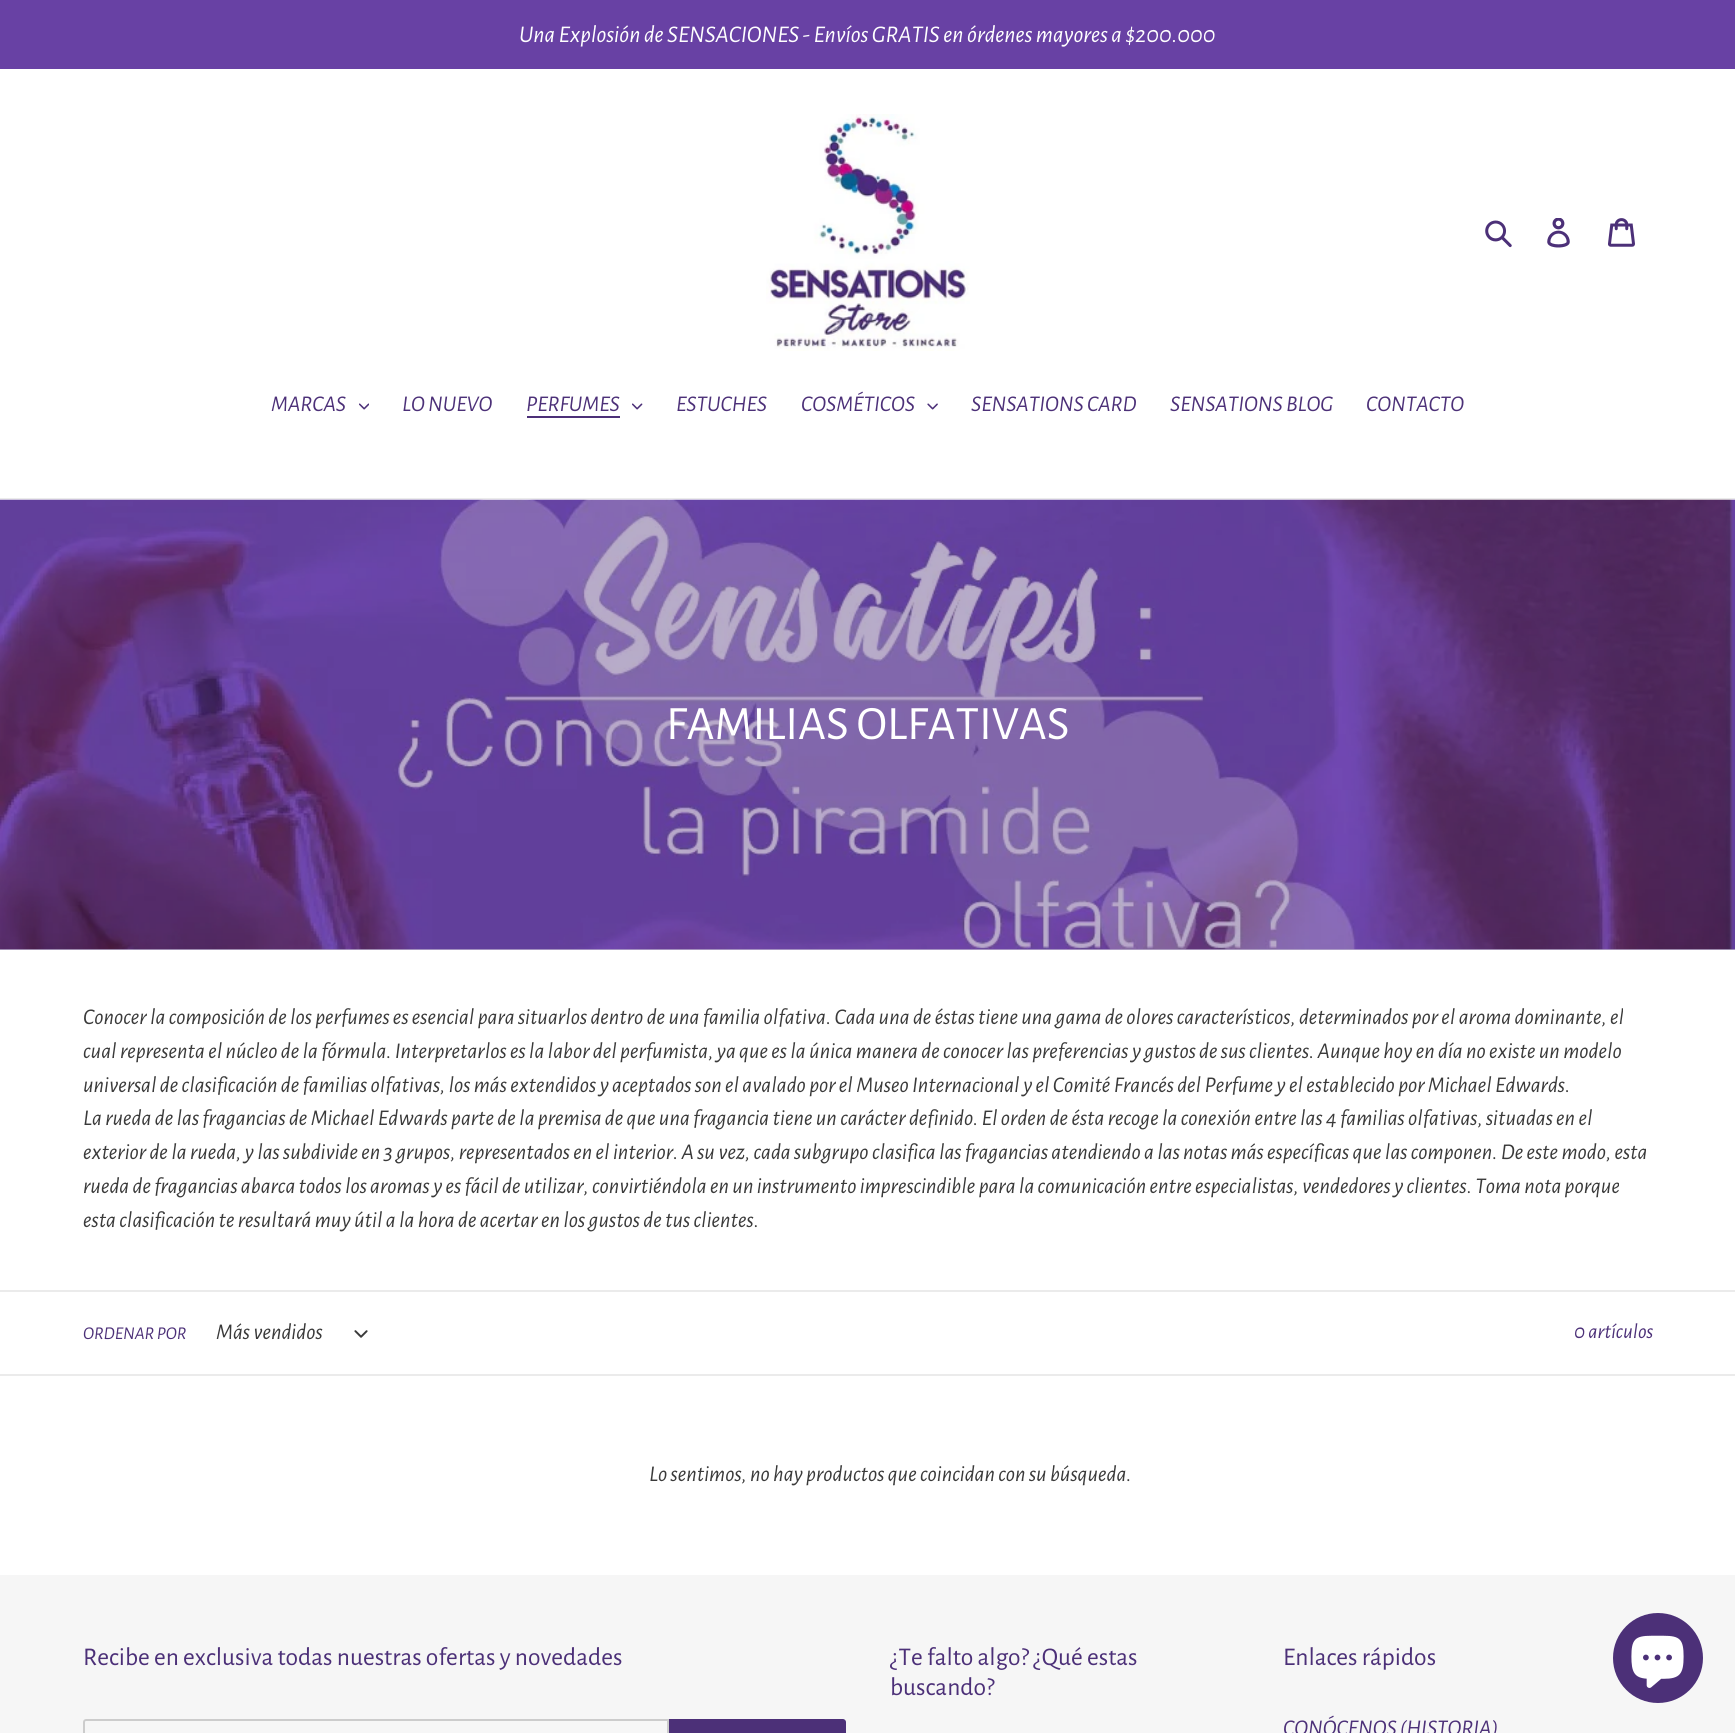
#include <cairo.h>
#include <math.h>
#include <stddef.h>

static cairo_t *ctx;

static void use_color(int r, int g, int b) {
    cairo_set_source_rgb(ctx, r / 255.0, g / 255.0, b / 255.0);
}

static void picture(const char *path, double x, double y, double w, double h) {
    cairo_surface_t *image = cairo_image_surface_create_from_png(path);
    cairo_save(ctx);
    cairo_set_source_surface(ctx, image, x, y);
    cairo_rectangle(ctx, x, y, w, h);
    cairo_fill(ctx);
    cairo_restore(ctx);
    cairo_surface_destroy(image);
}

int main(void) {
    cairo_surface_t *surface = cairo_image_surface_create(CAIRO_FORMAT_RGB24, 1735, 1733);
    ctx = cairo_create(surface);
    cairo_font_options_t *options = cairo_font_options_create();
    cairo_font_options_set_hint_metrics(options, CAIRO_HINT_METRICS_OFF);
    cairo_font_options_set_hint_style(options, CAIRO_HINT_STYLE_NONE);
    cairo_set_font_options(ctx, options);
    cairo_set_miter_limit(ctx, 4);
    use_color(255, 255, 255);
    cairo_paint(ctx);
    use_color(183, 172, 201);
    cairo_rectangle(ctx, 0, 949, 1735, 1);
    cairo_fill(ctx);
    use_color(104, 65, 164);
    cairo_rectangle(ctx, 0, 0, 1735, 69);
    cairo_fill(ctx);
    cairo_select_font_face(ctx, "Alegreya Sans", CAIRO_FONT_SLANT_ITALIC, CAIRO_FONT_WEIGHT_NORMAL);
    cairo_set_font_size(ctx, 24);
    use_color(255, 255, 255);
    cairo_move_to(ctx, 519, 42);
    cairo_show_text(ctx, "Una Explosión de SENSACIONES - Envíos GRATIS en órdenes mayores a $200.000");
    picture("img1.png", 766, 114, 204, 237);
    picture("img2.png", 1485, 220, 27, 28);
    picture("img3.png", 1547, 218, 23, 30);
    picture("img4.png", 1608, 218, 27, 29);
    use_color(235, 235, 235);
    cairo_rectangle(ctx, 0, 498, 1735, 2);
    cairo_fill(ctx);
    cairo_set_font_size(ctx, 22.5);
    use_color(76, 48, 120);
    cairo_move_to(ctx, 271, 411);
    cairo_show_text(ctx, "MARCAS");
    picture("img5.png", 359, 403, 10, 7);
    cairo_move_to(ctx, 402, 411);
    cairo_show_text(ctx, "LO NUEVO");
    cairo_move_to(ctx, 526, 411);
    cairo_show_text(ctx, "PERFUMES");
    cairo_rectangle(ctx, 527, 416, 93, 2);
    cairo_fill(ctx);
    picture("img6.png", 632, 403, 11, 7);
    cairo_move_to(ctx, 676, 411);
    cairo_show_text(ctx, "ESTUCHES");
    cairo_move_to(ctx, 801, 411);
    cairo_show_text(ctx, "COSMÉTICOS");
    picture("img7.png", 927, 403, 11, 7);
    cairo_move_to(ctx, 971, 411);
    cairo_show_text(ctx, "SENSATIONS CARD");
    cairo_move_to(ctx, 1170, 411);
    cairo_show_text(ctx, "SENSATIONS BLOG");
    cairo_move_to(ctx, 1366, 411);
    cairo_show_text(ctx, "CONTACTO");
    picture("img8.png", 0, 499, 1735, 451);
    cairo_select_font_face(ctx, "Alegreya Sans", CAIRO_FONT_SLANT_NORMAL, CAIRO_FONT_WEIGHT_NORMAL);
    cairo_set_font_size(ctx, 48);
    use_color(255, 255, 255);
    cairo_move_to(ctx, 666, 739);
    cairo_show_text(ctx, "FAMILIAS OLFATIVAS");
    cairo_select_font_face(ctx, "Alegreya Sans", CAIRO_FONT_SLANT_ITALIC, CAIRO_FONT_WEIGHT_NORMAL);
    cairo_set_font_size(ctx, 22.5);
    use_color(58, 58, 58);
    cairo_move_to(ctx, 83, 1024);
    cairo_show_text(ctx, "Conocer la composición de los perfumes es esencial para situarlos dentro de una familia olfativa. Cada una de éstas tiene una gama de olores característicos, determinados por el aroma dominante, el");
    cairo_move_to(ctx, 83, 1058);
    cairo_show_text(ctx, "cual representa el núcleo de la fórmula. Interpretarlos es la labor del perfumista, ya que es la única manera de conocer las preferencias y gustos de sus clientes. Aunque hoy en día no existe un modelo");
    cairo_move_to(ctx, 83, 1092);
    cairo_show_text(ctx, "universal de clasificación de familias olfativas, los más extendidos y aceptados son el avalado por el Museo Internacional y el Comité Francés del Perfume y el establecido por Michael Edwards.");
    cairo_move_to(ctx, 83, 1125);
    cairo_show_text(ctx, "La rueda de las fragancias de Michael Edwards parte de la premisa de que una fragancia tiene un carácter definido. El orden de ésta recoge la conexión entre las 4 familias olfativas, situadas en el");
    cairo_move_to(ctx, 83, 1159);
    cairo_show_text(ctx, "exterior de la rueda, y las subdivide en 3 grupos, representados en el interior. A su vez, cada subgrupo clasifica las fragancias atendiendo a las notas más específicas que las componen. De este modo, esta");
    cairo_move_to(ctx, 83, 1193);
    cairo_show_text(ctx, "rueda de fragancias abarca todos los aromas y es fácil de utilizar, convirtiéndola en un instrumento imprescindible para la comunicación entre especialistas, vendedores y clientes. Toma nota porque");
    cairo_move_to(ctx, 83, 1227);
    cairo_show_text(ctx, "esta clasificación te resultará muy útil a la hora de acertar en los gustos de tus clientes.");
    use_color(235, 235, 235);
    cairo_rectangle(ctx, 0, 1290, 1735, 2);
    cairo_fill(ctx);
    cairo_rectangle(ctx, 0, 1374, 1735, 2);
    cairo_fill(ctx);
    cairo_set_font_size(ctx, 18);
    use_color(76, 48, 120);
    cairo_move_to(ctx, 83, 1339);
    cairo_show_text(ctx, "ORDENAR POR");
    cairo_set_font_size(ctx, 22.5);
    use_color(58, 58, 58);
    cairo_move_to(ctx, 216, 1339);
    cairo_show_text(ctx, "Más vendidos");
    picture("img9.png", 354, 1330, 14, 8);
    cairo_set_font_size(ctx, 21);
    use_color(76, 48, 120);
    cairo_move_to(ctx, 1574, 1338);
    cairo_show_text(ctx, "0 artículos");
    cairo_set_font_size(ctx, 22.5);
    use_color(58, 58, 58);
    cairo_move_to(ctx, 649, 1481);
    cairo_show_text(ctx, "Lo sentimos, no hay productos que coincidan con su búsqueda.");
    use_color(246, 246, 246);
    cairo_rectangle(ctx, 0, 1575, 1735, 158);
    cairo_fill(ctx);
    cairo_select_font_face(ctx, "Alegreya Sans", CAIRO_FONT_SLANT_NORMAL, CAIRO_FONT_WEIGHT_NORMAL);
    cairo_set_font_size(ctx, 25.5);
    use_color(76, 48, 120);
    cairo_move_to(ctx, 83, 1665);
    cairo_show_text(ctx, "Recibe en exclusiva todas nuestras ofertas y novedades");
    cairo_new_path(ctx);
    cairo_move_to(ctx, 86, 1720);
    cairo_line_to(ctx, 668, 1720);
    cairo_line_to(ctx, 668, 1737);
    cairo_line_to(ctx, 86, 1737);
    cairo_curve_to(ctx, 85, 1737, 84, 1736, 84, 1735);
    cairo_line_to(ctx, 84, 1722);
    cairo_curve_to(ctx, 84, 1721, 85, 1720, 86, 1720);
    cairo_close_path(ctx);
    use_color(204, 204, 204);
    cairo_stroke(ctx);
    use_color(76, 48, 120);
    cairo_new_path(ctx);
    cairo_move_to(ctx, 669, 1719);
    cairo_line_to(ctx, 843, 1719);
    cairo_curve_to(ctx, 844.5, 1719, 846, 1720.5, 846, 1722);
    cairo_line_to(ctx, 846, 1733);
    cairo_curve_to(ctx, 846, 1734.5, 844.5, 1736, 843, 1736);
    cairo_line_to(ctx, 669, 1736);
    cairo_close_path(ctx);
    cairo_fill(ctx);
    cairo_move_to(ctx, 890, 1665);
    cairo_show_text(ctx, "¿Te falto algo? ¿Qué estas");
    cairo_move_to(ctx, 890, 1695);
    cairo_show_text(ctx, "buscando?");
    cairo_move_to(ctx, 1283, 1665);
    cairo_show_text(ctx, "Enlaces rápidos");
    cairo_select_font_face(ctx, "Alegreya Sans", CAIRO_FONT_SLANT_ITALIC, CAIRO_FONT_WEIGHT_NORMAL);
    cairo_set_font_size(ctx, 22.5);
    cairo_move_to(ctx, 1283, 1735);
    cairo_show_text(ctx, "CONÓCENOS (HISTORIA)");
    cairo_new_path(ctx);
    cairo_arc(ctx, 1658, 1658, 45, 0, 2 * M_PI);
    cairo_fill(ctx);
    picture("img10.png", 1631, 1635, 53, 53);
    cairo_surface_write_to_png(surface, "result.png");
    cairo_font_options_destroy(options);
    cairo_destroy(ctx);
    cairo_surface_destroy(surface);
    return 0;
}
